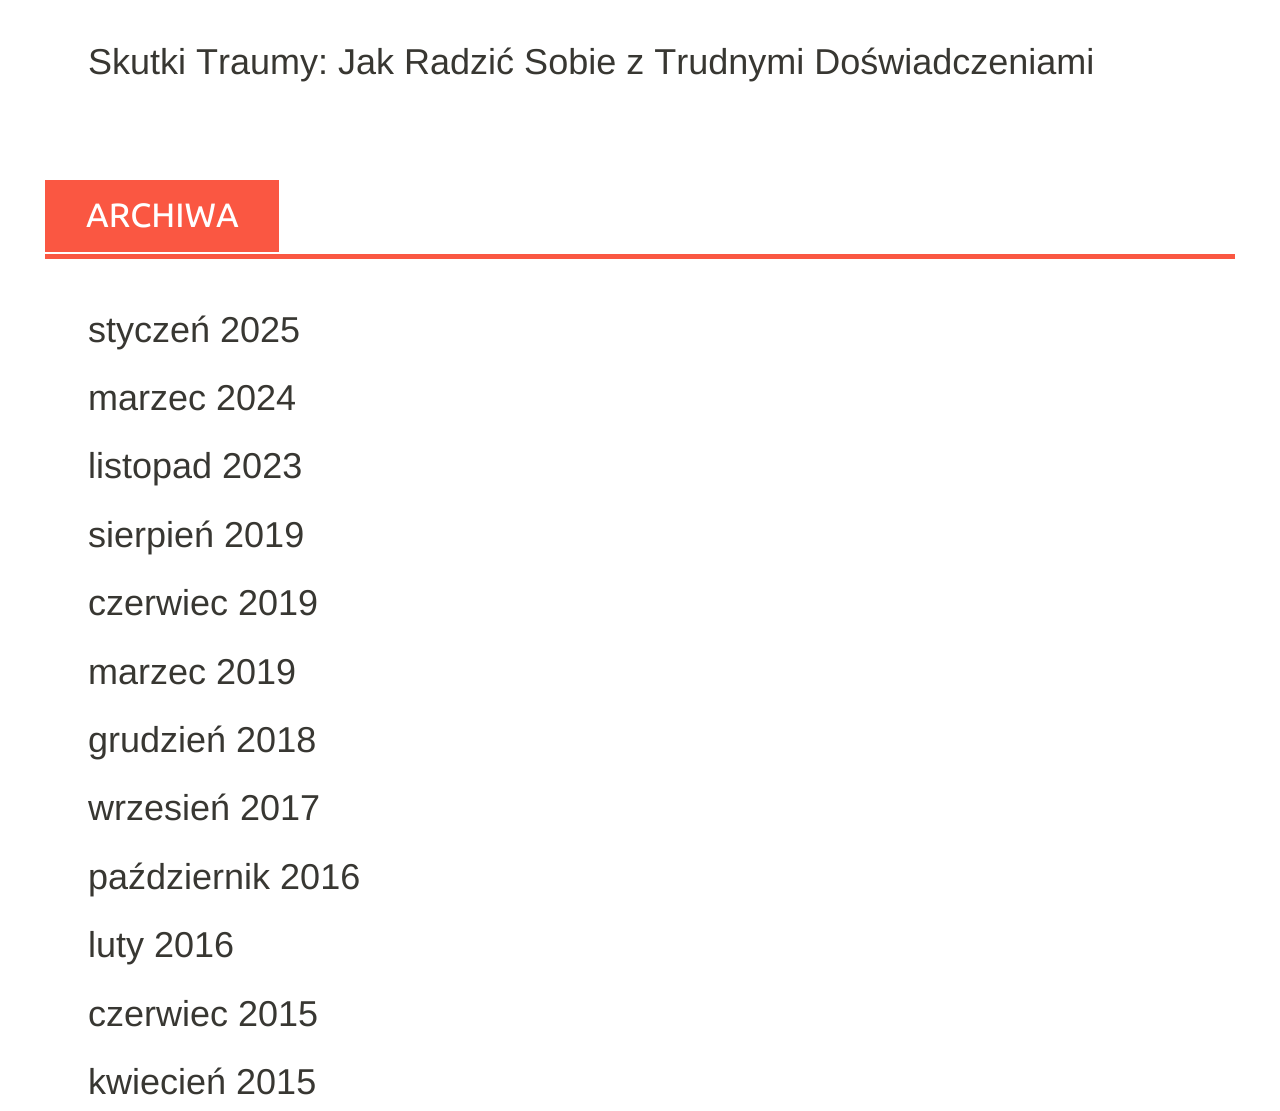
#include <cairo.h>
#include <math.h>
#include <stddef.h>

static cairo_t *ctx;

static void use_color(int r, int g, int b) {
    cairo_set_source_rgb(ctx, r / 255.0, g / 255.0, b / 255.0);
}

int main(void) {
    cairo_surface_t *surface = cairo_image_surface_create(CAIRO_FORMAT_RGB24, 1280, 1111);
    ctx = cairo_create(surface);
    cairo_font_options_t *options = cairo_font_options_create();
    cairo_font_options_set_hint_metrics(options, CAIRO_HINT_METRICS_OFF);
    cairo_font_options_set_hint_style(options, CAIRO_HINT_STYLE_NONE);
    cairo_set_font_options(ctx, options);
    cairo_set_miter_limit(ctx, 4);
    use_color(255, 255, 255);
    cairo_paint(ctx);
    cairo_select_font_face(ctx, "Liberation Sans", CAIRO_FONT_SLANT_NORMAL, CAIRO_FONT_WEIGHT_NORMAL);
    cairo_set_font_size(ctx, 36);
    use_color(56, 55, 50);
    cairo_move_to(ctx, 88, 74);
    cairo_show_text(ctx, "Skutki Traumy: Jak Radzić Sobie z Trudnymi Doświadczeniami");
    use_color(250, 87, 66);
    cairo_rectangle(ctx, 45, 254, 1190, 5);
    cairo_fill(ctx);
    cairo_rectangle(ctx, 45, 180, 234, 72);
    cairo_fill(ctx);
    cairo_select_font_face(ctx, "Ubuntu Medium", CAIRO_FONT_SLANT_NORMAL, CAIRO_FONT_WEIGHT_NORMAL);
    cairo_set_font_size(ctx, 33.75);
    use_color(255, 255, 255);
    cairo_move_to(ctx, 86, 227);
    cairo_show_text(ctx, "ARCHIWA");
    cairo_select_font_face(ctx, "Liberation Sans", CAIRO_FONT_SLANT_NORMAL, CAIRO_FONT_WEIGHT_NORMAL);
    cairo_set_font_size(ctx, 36);
    use_color(56, 55, 50);
    cairo_move_to(ctx, 88, 342);
    cairo_show_text(ctx, "styczeń 2025");
    cairo_move_to(ctx, 88, 410);
    cairo_show_text(ctx, "marzec 2024");
    cairo_move_to(ctx, 88, 478);
    cairo_show_text(ctx, "listopad 2023");
    cairo_move_to(ctx, 88, 547);
    cairo_show_text(ctx, "sierpień 2019");
    cairo_move_to(ctx, 88, 615);
    cairo_show_text(ctx, "czerwiec 2019");
    cairo_move_to(ctx, 88, 684);
    cairo_show_text(ctx, "marzec 2019");
    cairo_move_to(ctx, 88, 752);
    cairo_show_text(ctx, "grudzień 2018");
    cairo_move_to(ctx, 88, 820);
    cairo_show_text(ctx, "wrzesień 2017");
    cairo_move_to(ctx, 88, 889);
    cairo_show_text(ctx, "październik 2016");
    cairo_move_to(ctx, 88, 957);
    cairo_show_text(ctx, "luty 2016");
    cairo_move_to(ctx, 88, 1026);
    cairo_show_text(ctx, "czerwiec 2015");
    cairo_move_to(ctx, 88, 1094);
    cairo_show_text(ctx, "kwiecień 2015");
    cairo_surface_write_to_png(surface, "result.png");
    cairo_font_options_destroy(options);
    cairo_destroy(ctx);
    cairo_surface_destroy(surface);
    return 0;
}
